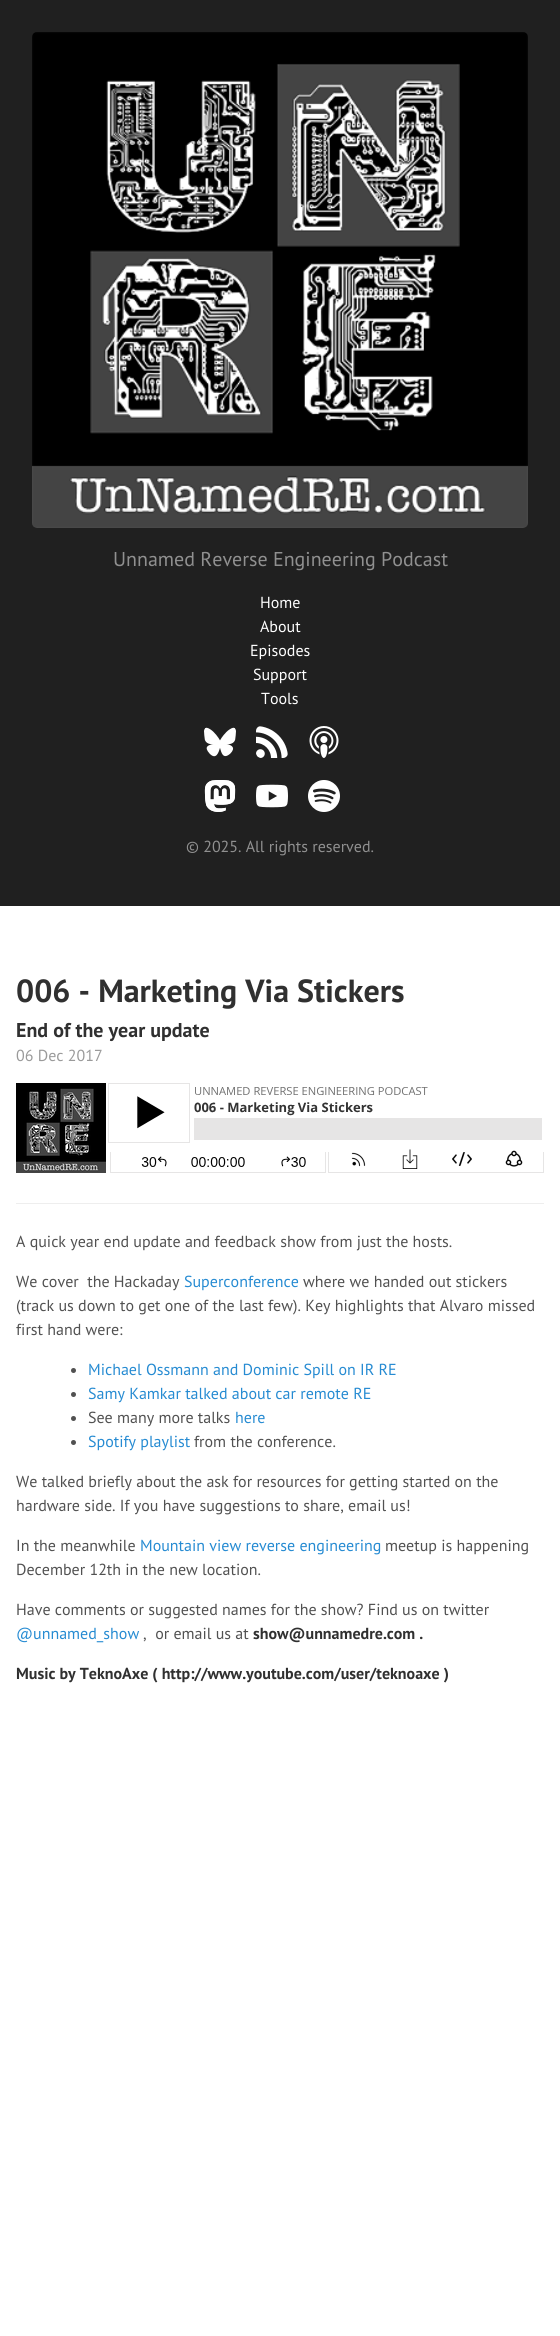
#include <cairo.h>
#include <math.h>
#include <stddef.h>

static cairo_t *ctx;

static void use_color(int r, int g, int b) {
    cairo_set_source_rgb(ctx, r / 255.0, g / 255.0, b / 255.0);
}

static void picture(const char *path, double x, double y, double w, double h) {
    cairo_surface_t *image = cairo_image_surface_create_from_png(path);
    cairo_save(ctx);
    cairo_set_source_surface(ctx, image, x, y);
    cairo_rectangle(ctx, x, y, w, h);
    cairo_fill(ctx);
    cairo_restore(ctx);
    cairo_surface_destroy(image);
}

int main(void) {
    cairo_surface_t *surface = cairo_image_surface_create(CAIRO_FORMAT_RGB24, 560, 2336);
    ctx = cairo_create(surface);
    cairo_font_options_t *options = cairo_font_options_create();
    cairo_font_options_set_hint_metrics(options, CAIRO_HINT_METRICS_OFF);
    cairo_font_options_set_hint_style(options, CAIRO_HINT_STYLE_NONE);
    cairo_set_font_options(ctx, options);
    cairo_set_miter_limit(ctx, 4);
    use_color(255, 255, 255);
    cairo_paint(ctx);
    use_color(32, 32, 32);
    cairo_rectangle(ctx, 0, 0, 560, 906);
    cairo_fill(ctx);
    picture("img1.png", 32, 32, 496, 496);
    cairo_select_font_face(ctx, "PT Sans", CAIRO_FONT_SLANT_NORMAL, CAIRO_FONT_WEIGHT_NORMAL);
    cairo_set_font_size(ctx, 20);
    use_color(144, 144, 144);
    cairo_move_to(ctx, 113, 566);
    cairo_show_text(ctx, "Unnamed Reverse Engineering Podcast");
    cairo_set_font_size(ctx, 16);
    use_color(255, 255, 255);
    cairo_move_to(ctx, 260, 608);
    cairo_show_text(ctx, "Home");
    cairo_move_to(ctx, 260, 632);
    cairo_show_text(ctx, "About");
    cairo_move_to(ctx, 250, 656);
    cairo_show_text(ctx, "Episodes");
    cairo_move_to(ctx, 253, 680);
    cairo_show_text(ctx, "Support");
    cairo_move_to(ctx, 261, 704);
    cairo_show_text(ctx, "Tools");
    picture("img2.png", 204, 727, 32, 30);
    picture("img3.png", 256, 726, 32, 32);
    picture("img4.png", 309, 726, 30, 32);
    picture("img5.png", 204, 780, 32, 32);
    picture("img6.png", 256, 784, 32, 24);
    picture("img7.png", 308, 780, 32, 32);
    use_color(144, 144, 144);
    cairo_move_to(ctx, 186, 852);
    cairo_show_text(ctx, "© 2025. All rights reserved.");
    cairo_select_font_face(ctx, "PT Sans", CAIRO_FONT_SLANT_NORMAL, CAIRO_FONT_WEIGHT_BOLD);
    cairo_set_font_size(ctx, 32);
    use_color(48, 48, 48);
    cairo_move_to(ctx, 16, 1002);
    cairo_show_text(ctx, "006 - Marketing Via Stickers");
    cairo_set_font_size(ctx, 20);
    cairo_move_to(ctx, 16, 1037);
    cairo_show_text(ctx, "End of the year update");
    cairo_select_font_face(ctx, "PT Sans", CAIRO_FONT_SLANT_NORMAL, CAIRO_FONT_WEIGHT_NORMAL);
    cairo_set_font_size(ctx, 16);
    use_color(154, 154, 154);
    cairo_move_to(ctx, 16, 1061);
    cairo_show_text(ctx, "06 Dec 2017");
    picture("img8.png", 16, 1083, 528, 90);
    use_color(238, 238, 238);
    cairo_rectangle(ctx, 16, 1203, 528, 1);
    cairo_fill(ctx);
    use_color(81, 81, 81);
    cairo_move_to(ctx, 16, 1247);
    cairo_show_text(ctx, "A quick year end update and feedback show from just the hosts.");
    cairo_move_to(ctx, 16, 1287);
    cairo_show_text(ctx, "We cover  the Hackaday");
    use_color(38, 139, 210);
    cairo_move_to(ctx, 184, 1287);
    cairo_show_text(ctx, "Superconference");
    use_color(81, 81, 81);
    cairo_move_to(ctx, 303, 1287);
    cairo_show_text(ctx, "where we handed out stickers");
    cairo_move_to(ctx, 16, 1311);
    cairo_show_text(ctx, "(track us down to get one of the last few). Key highlights that Alvaro missed");
    cairo_move_to(ctx, 16, 1335);
    cairo_show_text(ctx, "first hand were:");
    cairo_new_path(ctx);
    cairo_arc(ctx, 73.5, 1370.5, 2.5, 0, 2 * M_PI);
    cairo_fill(ctx);
    use_color(38, 139, 210);
    cairo_move_to(ctx, 88, 1375);
    cairo_show_text(ctx, "Michael Ossmann and Dominic Spill on IR RE");
    use_color(81, 81, 81);
    cairo_new_path(ctx);
    cairo_arc(ctx, 73.5, 1394.5, 2.5, 0, 2 * M_PI);
    cairo_fill(ctx);
    use_color(38, 139, 210);
    cairo_move_to(ctx, 88, 1399);
    cairo_show_text(ctx, "Samy Kamkar talked about car remote RE");
    use_color(81, 81, 81);
    cairo_new_path(ctx);
    cairo_arc(ctx, 73.5, 1418.5, 2.5, 0, 2 * M_PI);
    cairo_fill(ctx);
    cairo_move_to(ctx, 88, 1423);
    cairo_show_text(ctx, "See many more talks");
    use_color(38, 139, 210);
    cairo_move_to(ctx, 235, 1423);
    cairo_show_text(ctx, "here");
    use_color(81, 81, 81);
    cairo_new_path(ctx);
    cairo_arc(ctx, 73.5, 1442.5, 2.5, 0, 2 * M_PI);
    cairo_fill(ctx);
    use_color(38, 139, 210);
    cairo_move_to(ctx, 88, 1447);
    cairo_show_text(ctx, "Spotify playlist");
    use_color(81, 81, 81);
    cairo_move_to(ctx, 194, 1447);
    cairo_show_text(ctx, "from the conference.");
    cairo_move_to(ctx, 16, 1487);
    cairo_show_text(ctx, "We talked briefly about the ask for resources for getting started on the");
    cairo_move_to(ctx, 16, 1511);
    cairo_show_text(ctx, "hardware side. If you have suggestions to share, email us!");
    cairo_move_to(ctx, 16, 1551);
    cairo_show_text(ctx, "In the meanwhile");
    use_color(38, 139, 210);
    cairo_move_to(ctx, 140, 1551);
    cairo_show_text(ctx, "Mountain view reverse engineering");
    use_color(81, 81, 81);
    cairo_move_to(ctx, 385, 1551);
    cairo_show_text(ctx, "meetup is happening");
    cairo_move_to(ctx, 16, 1575);
    cairo_show_text(ctx, "December 12th in the new location.");
    cairo_move_to(ctx, 16, 1615);
    cairo_show_text(ctx, "Have comments or suggested names for the show? Find us on twitter");
    use_color(38, 139, 210);
    cairo_move_to(ctx, 16, 1639);
    cairo_show_text(ctx, "@unnamed_show");
    use_color(81, 81, 81);
    cairo_move_to(ctx, 143, 1639);
    cairo_show_text(ctx, ",  or email us at");
    cairo_select_font_face(ctx, "PT Sans", CAIRO_FONT_SLANT_NORMAL, CAIRO_FONT_WEIGHT_BOLD);
    use_color(48, 48, 48);
    cairo_move_to(ctx, 253, 1639);
    cairo_show_text(ctx, "show@unnamedre.com .");
    cairo_move_to(ctx, 16, 1679);
    cairo_show_text(ctx, "Music by TeknoAxe ( http://www.youtube.com/user/teknoaxe )");
    cairo_surface_write_to_png(surface, "result.png");
    cairo_font_options_destroy(options);
    cairo_destroy(ctx);
    cairo_surface_destroy(surface);
    return 0;
}
